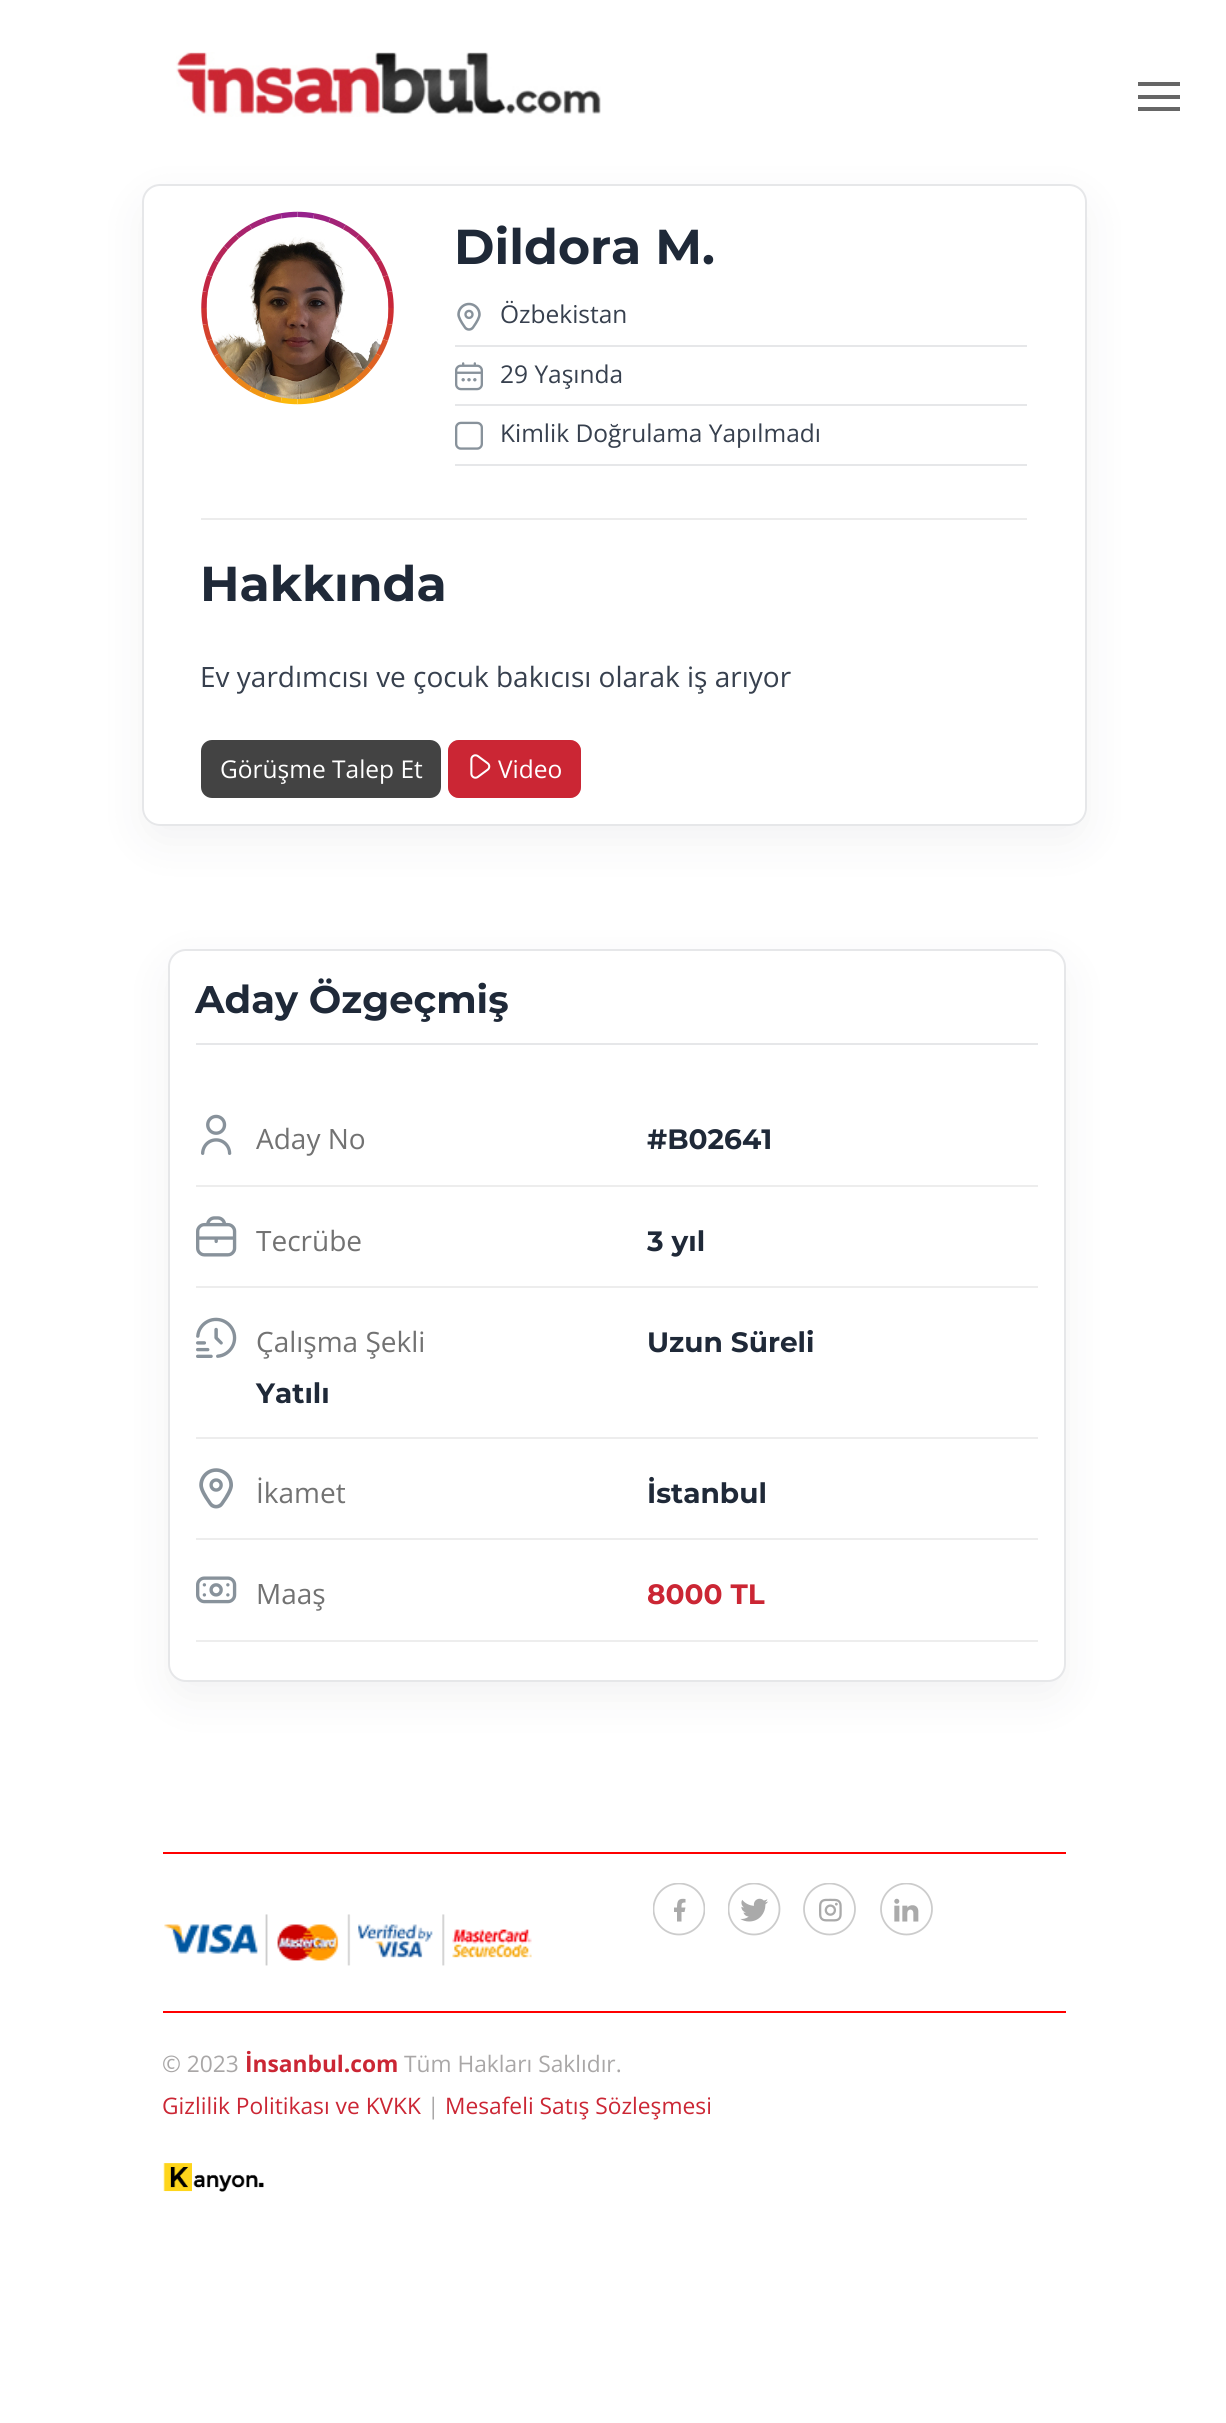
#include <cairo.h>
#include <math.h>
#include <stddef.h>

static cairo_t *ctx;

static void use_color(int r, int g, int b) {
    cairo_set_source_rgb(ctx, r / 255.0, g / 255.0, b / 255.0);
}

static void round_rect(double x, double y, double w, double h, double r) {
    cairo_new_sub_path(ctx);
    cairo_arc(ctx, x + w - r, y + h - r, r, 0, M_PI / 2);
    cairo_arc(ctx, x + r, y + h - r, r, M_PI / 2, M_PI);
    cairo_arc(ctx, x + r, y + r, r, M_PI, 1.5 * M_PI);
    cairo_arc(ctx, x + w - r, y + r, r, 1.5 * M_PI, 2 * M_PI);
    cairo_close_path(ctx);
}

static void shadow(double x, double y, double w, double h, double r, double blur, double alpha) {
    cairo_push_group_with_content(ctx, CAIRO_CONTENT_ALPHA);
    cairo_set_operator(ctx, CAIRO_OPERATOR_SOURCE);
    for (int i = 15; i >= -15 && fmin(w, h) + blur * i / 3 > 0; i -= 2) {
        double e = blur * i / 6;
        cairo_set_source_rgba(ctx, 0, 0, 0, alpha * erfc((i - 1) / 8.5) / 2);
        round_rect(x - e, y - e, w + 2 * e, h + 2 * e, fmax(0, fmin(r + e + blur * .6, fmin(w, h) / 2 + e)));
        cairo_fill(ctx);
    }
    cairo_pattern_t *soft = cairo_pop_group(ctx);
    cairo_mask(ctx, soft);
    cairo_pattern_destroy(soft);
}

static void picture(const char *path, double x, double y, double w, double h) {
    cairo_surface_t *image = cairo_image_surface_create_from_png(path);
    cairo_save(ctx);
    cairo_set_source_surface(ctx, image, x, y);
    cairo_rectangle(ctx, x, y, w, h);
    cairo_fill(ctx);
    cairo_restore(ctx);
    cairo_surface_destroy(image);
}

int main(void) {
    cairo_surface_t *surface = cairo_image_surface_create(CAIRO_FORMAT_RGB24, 1226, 2423);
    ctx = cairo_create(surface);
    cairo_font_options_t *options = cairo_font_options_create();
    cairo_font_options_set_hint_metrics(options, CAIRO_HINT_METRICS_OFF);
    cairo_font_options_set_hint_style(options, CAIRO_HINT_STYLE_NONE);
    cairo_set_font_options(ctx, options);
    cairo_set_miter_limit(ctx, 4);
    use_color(255, 255, 255);
    cairo_paint(ctx);
    picture("img1.png", 176, 52, 425, 65);
    use_color(102, 102, 102);
    cairo_rectangle(ctx, 1138, 82, 42, 4);
    cairo_fill(ctx);
    cairo_rectangle(ctx, 1138, 95, 42, 4);
    cairo_fill(ctx);
    cairo_rectangle(ctx, 1138, 107, 42, 4);
    cairo_fill(ctx);
    cairo_save(ctx);
    cairo_set_fill_rule(ctx, CAIRO_FILL_RULE_EVEN_ODD);
    cairo_new_path(ctx);
    cairo_move_to(ctx, 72, 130);
    cairo_line_to(ctx, 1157, 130);
    cairo_line_to(ctx, 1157, 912);
    cairo_line_to(ctx, 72, 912);
    cairo_close_path(ctx);
    cairo_move_to(ctx, 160, 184);
    cairo_line_to(ctx, 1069, 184);
    cairo_curve_to(ctx, 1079, 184, 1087, 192, 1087, 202);
    cairo_line_to(ctx, 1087, 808);
    cairo_curve_to(ctx, 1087, 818, 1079, 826, 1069, 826);
    cairo_line_to(ctx, 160, 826);
    cairo_curve_to(ctx, 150, 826, 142, 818, 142, 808);
    cairo_line_to(ctx, 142, 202);
    cairo_curve_to(ctx, 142, 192, 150, 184, 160, 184);
    cairo_close_path(ctx);
    cairo_clip(ctx);
    use_color(31, 31, 51);
    shadow(142, 200, 945, 642, 18, 23, 0.06);
    cairo_restore(ctx);
    round_rect(143, 185, 943, 640, 17);
    use_color(230, 231, 233);
    cairo_stroke(ctx);
    use_color(236, 236, 236);
    cairo_rectangle(ctx, 201, 518, 826, 2);
    cairo_fill(ctx);
    picture("img2.png", 201, 211, 193, 194);
    picture("img3.png", 206, 217, 183, 182);
    cairo_select_font_face(ctx, "Montserrat", CAIRO_FONT_SLANT_NORMAL, CAIRO_FONT_WEIGHT_BOLD);
    cairo_set_font_size(ctx, 49);
    use_color(31, 41, 56);
    cairo_move_to(ctx, 454, 264);
    cairo_show_text(ctx, "Dildora M.");
    use_color(230, 231, 233);
    cairo_rectangle(ctx, 455, 345, 572, 2);
    cairo_fill(ctx);
    picture("img4.png", 457, 302, 24, 29);
    cairo_select_font_face(ctx, "Open Sans", CAIRO_FONT_SLANT_NORMAL, CAIRO_FONT_WEIGHT_NORMAL);
    cairo_set_font_size(ctx, 24.5);
    use_color(55, 64, 78);
    cairo_move_to(ctx, 500, 323);
    cairo_show_text(ctx, "Özbekistan");
    use_color(230, 231, 233);
    cairo_rectangle(ctx, 455, 404, 572, 2);
    cairo_fill(ctx);
    picture("img5.png", 455, 362, 28, 29);
    use_color(55, 64, 78);
    cairo_move_to(ctx, 500, 383);
    cairo_show_text(ctx, "29 Yaşında");
    use_color(230, 231, 233);
    cairo_rectangle(ctx, 455, 464, 572, 2);
    cairo_fill(ctx);
    picture("img6.png", 455, 421, 28, 29);
    use_color(55, 64, 78);
    cairo_move_to(ctx, 500, 442);
    cairo_show_text(ctx, "Kimlik Doğrulama Yapılmadı");
    cairo_select_font_face(ctx, "Montserrat", CAIRO_FONT_SLANT_NORMAL, CAIRO_FONT_WEIGHT_BOLD);
    cairo_set_font_size(ctx, 49);
    use_color(31, 41, 56);
    cairo_move_to(ctx, 200, 601);
    cairo_show_text(ctx, "Hakkında");
    cairo_select_font_face(ctx, "Open Sans", CAIRO_FONT_SLANT_NORMAL, CAIRO_FONT_WEIGHT_NORMAL);
    cairo_set_font_size(ctx, 28);
    use_color(55, 64, 78);
    cairo_move_to(ctx, 200, 687);
    cairo_show_text(ctx, "Ev yardımcısı ve çocuk bakıcısı olarak iş arıyor");
    use_color(67, 67, 67);
    round_rect(202, 741, 238, 56, 10);
    cairo_fill_preserve(ctx);
    cairo_stroke(ctx);
    cairo_set_font_size(ctx, 24.5);
    use_color(255, 255, 255);
    cairo_move_to(ctx, 220, 778);
    cairo_show_text(ctx, "Görüşme Talep Et");
    use_color(203, 38, 52);
    round_rect(448, 740, 133, 58, 11);
    cairo_fill(ctx);
    round_rect(449, 741, 131, 56, 10);
    cairo_set_source_rgba(ctx, 0.796, 0.149, 0.204, 0.5);
    cairo_stroke(ctx);
    picture("img7.png", 470, 754, 21, 25);
    use_color(255, 255, 255);
    cairo_move_to(ctx, 498, 778);
    cairo_show_text(ctx, "Video");
    use_color(31, 31, 51);
    shadow(168, 964, 898, 734, 18, 23, 0.06);
    use_color(255, 255, 255);
    round_rect(169, 950, 896, 731, 17);
    cairo_fill_preserve(ctx);
    use_color(230, 231, 233);
    cairo_stroke(ctx);
    cairo_select_font_face(ctx, "Montserrat", CAIRO_FONT_SLANT_NORMAL, CAIRO_FONT_WEIGHT_BOLD);
    cairo_set_font_size(ctx, 38.5);
    use_color(31, 41, 56);
    cairo_move_to(ctx, 195, 1013);
    cairo_show_text(ctx, "Aday Özgeçmiş");
    use_color(230, 231, 233);
    cairo_rectangle(ctx, 196, 1043, 842, 2);
    cairo_fill(ctx);
    use_color(237, 237, 237);
    cairo_rectangle(ctx, 196, 1185, 842, 2);
    cairo_fill(ctx);
    picture("img8.png", 201, 1114, 31, 41);
    cairo_select_font_face(ctx, "Open Sans", CAIRO_FONT_SLANT_NORMAL, CAIRO_FONT_WEIGHT_NORMAL);
    cairo_set_font_size(ctx, 28);
    use_color(114, 114, 114);
    cairo_move_to(ctx, 256, 1149);
    cairo_show_text(ctx, "Aday No");
    cairo_select_font_face(ctx, "Montserrat", CAIRO_FONT_SLANT_NORMAL, CAIRO_FONT_WEIGHT_BOLD);
    use_color(31, 41, 56);
    cairo_move_to(ctx, 647, 1149);
    cairo_show_text(ctx, "#B02641");
    use_color(237, 237, 237);
    cairo_rectangle(ctx, 196, 1286, 842, 2);
    cairo_fill(ctx);
    picture("img9.png", 196, 1216, 41, 41);
    cairo_select_font_face(ctx, "Open Sans", CAIRO_FONT_SLANT_NORMAL, CAIRO_FONT_WEIGHT_NORMAL);
    use_color(114, 114, 114);
    cairo_move_to(ctx, 256, 1251);
    cairo_show_text(ctx, "Tecrübe");
    cairo_select_font_face(ctx, "Montserrat", CAIRO_FONT_SLANT_NORMAL, CAIRO_FONT_WEIGHT_BOLD);
    use_color(31, 41, 56);
    cairo_move_to(ctx, 647, 1251);
    cairo_show_text(ctx, "3 yıl");
    use_color(237, 237, 237);
    cairo_rectangle(ctx, 196, 1437, 842, 2);
    cairo_fill(ctx);
    picture("img10.png", 196, 1317, 41, 41);
    cairo_select_font_face(ctx, "Open Sans", CAIRO_FONT_SLANT_NORMAL, CAIRO_FONT_WEIGHT_NORMAL);
    use_color(114, 114, 114);
    cairo_move_to(ctx, 256, 1352);
    cairo_show_text(ctx, "Çalışma Şekli");
    cairo_select_font_face(ctx, "Montserrat", CAIRO_FONT_SLANT_NORMAL, CAIRO_FONT_WEIGHT_BOLD);
    use_color(31, 41, 56);
    cairo_move_to(ctx, 647, 1352);
    cairo_show_text(ctx, "Uzun Süreli");
    cairo_move_to(ctx, 256, 1403);
    cairo_show_text(ctx, "Yatılı");
    use_color(237, 237, 237);
    cairo_rectangle(ctx, 196, 1538, 842, 2);
    cairo_fill(ctx);
    picture("img11.png", 199, 1468, 34, 41);
    cairo_select_font_face(ctx, "Open Sans", CAIRO_FONT_SLANT_NORMAL, CAIRO_FONT_WEIGHT_NORMAL);
    use_color(114, 114, 114);
    cairo_move_to(ctx, 256, 1503);
    cairo_show_text(ctx, "İkamet");
    cairo_select_font_face(ctx, "Montserrat", CAIRO_FONT_SLANT_NORMAL, CAIRO_FONT_WEIGHT_BOLD);
    use_color(31, 41, 56);
    cairo_move_to(ctx, 647, 1503);
    cairo_show_text(ctx, "İstanbul");
    use_color(237, 237, 237);
    cairo_rectangle(ctx, 196, 1640, 842, 2);
    cairo_fill(ctx);
    picture("img12.png", 196, 1576, 41, 28);
    cairo_select_font_face(ctx, "Open Sans", CAIRO_FONT_SLANT_NORMAL, CAIRO_FONT_WEIGHT_NORMAL);
    use_color(114, 114, 114);
    cairo_move_to(ctx, 256, 1604);
    cairo_show_text(ctx, "Maaş");
    cairo_select_font_face(ctx, "Montserrat", CAIRO_FONT_SLANT_NORMAL, CAIRO_FONT_WEIGHT_BOLD);
    use_color(203, 38, 52);
    cairo_move_to(ctx, 647, 1604);
    cairo_show_text(ctx, "8000 TL");
    use_color(255, 0, 0);
    cairo_rectangle(ctx, 163, 1852, 903, 2);
    cairo_fill(ctx);
    picture("img13.png", 164, 1914, 368, 52);
    cairo_save(ctx);
    cairo_rectangle(ctx, 653, 1883, 52, 53);
    cairo_clip(ctx);
    cairo_arc(ctx, 679, 1909, 25.5, 0, 2 * M_PI);
    use_color(204, 204, 204);
    cairo_set_line_width(ctx, 1.8);
    cairo_stroke(ctx);
    cairo_restore(ctx);
    use_color(170, 170, 170);
    cairo_new_path(ctx);
    cairo_move_to(ctx, 681.5, 1912);
    cairo_line_to(ctx, 684.5, 1912);
    cairo_line_to(ctx, 685.5, 1907.5);
    cairo_line_to(ctx, 681.5, 1907.5);
    cairo_curve_to(ctx, 681.5, 1903.5, 681.5, 1902.5, 685.5, 1902.5);
    cairo_line_to(ctx, 685.5, 1899);
    cairo_curve_to(ctx, 678.5, 1898, 677, 1900.5, 677, 1907.5);
    cairo_line_to(ctx, 674, 1907.5);
    cairo_line_to(ctx, 674, 1912);
    cairo_line_to(ctx, 677, 1912);
    cairo_line_to(ctx, 677, 1921.5);
    cairo_line_to(ctx, 681.5, 1921.5);
    cairo_close_path(ctx);
    cairo_fill(ctx);
    picture("img14.png", 728, 1883, 53, 53);
    picture("img15.png", 803, 1883, 53, 53);
    picture("img16.png", 880, 1883, 53, 53);
    use_color(255, 0, 0);
    cairo_rectangle(ctx, 163, 2011, 903, 2);
    cairo_fill(ctx);
    cairo_select_font_face(ctx, "Open Sans", CAIRO_FONT_SLANT_NORMAL, CAIRO_FONT_WEIGHT_NORMAL);
    cairo_set_font_size(ctx, 22.75);
    use_color(169, 167, 167);
    cairo_move_to(ctx, 162, 2072);
    cairo_show_text(ctx, "© 2023");
    cairo_select_font_face(ctx, "Open Sans", CAIRO_FONT_SLANT_NORMAL, CAIRO_FONT_WEIGHT_BOLD);
    use_color(203, 38, 52);
    cairo_move_to(ctx, 245, 2072);
    cairo_show_text(ctx, "İnsanbul.com");
    cairo_select_font_face(ctx, "Open Sans", CAIRO_FONT_SLANT_NORMAL, CAIRO_FONT_WEIGHT_NORMAL);
    use_color(169, 167, 167);
    cairo_move_to(ctx, 404, 2072);
    cairo_show_text(ctx, "Tüm Hakları Saklıdır.");
    use_color(203, 38, 52);
    cairo_move_to(ctx, 162, 2114);
    cairo_show_text(ctx, "Gizlilik Politikası ve KVKK");
    use_color(169, 167, 167);
    cairo_move_to(ctx, 427, 2114);
    cairo_show_text(ctx, "|");
    use_color(203, 38, 52);
    cairo_move_to(ctx, 445, 2114);
    cairo_show_text(ctx, "Mesafeli Satış Sözleşmesi");
    picture("img17.png", 163, 2163, 101, 29);
    cairo_surface_write_to_png(surface, "result.png");
    cairo_font_options_destroy(options);
    cairo_destroy(ctx);
    cairo_surface_destroy(surface);
    return 0;
}
